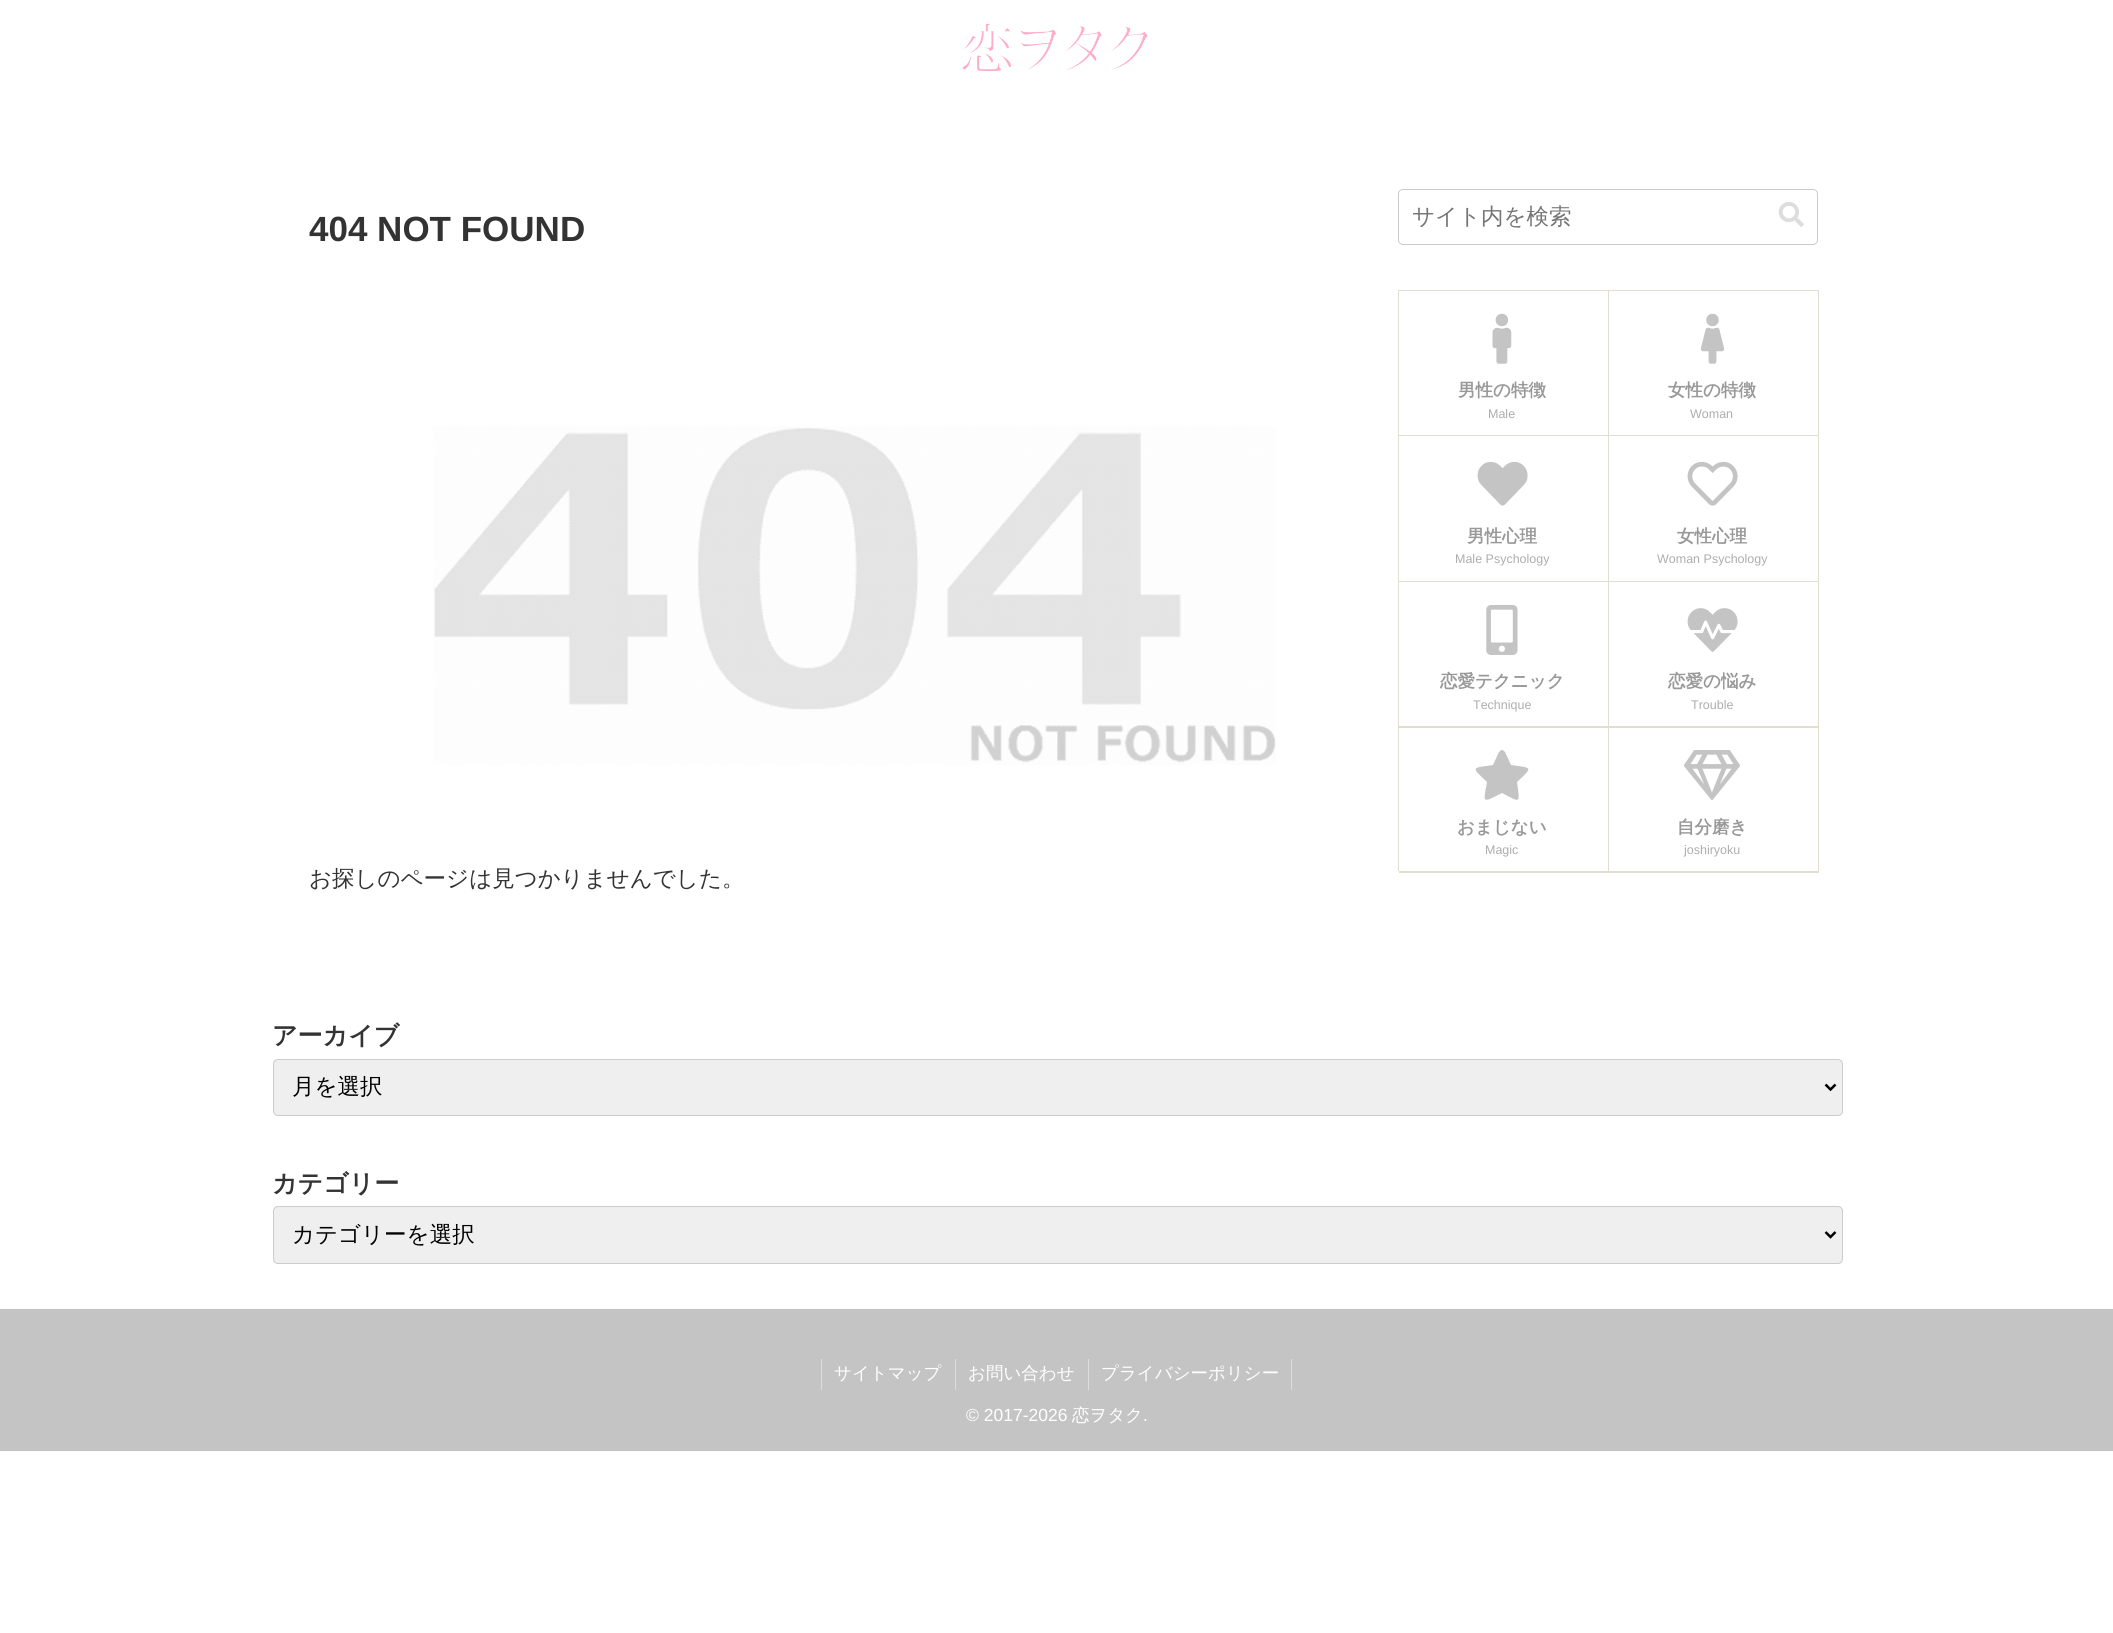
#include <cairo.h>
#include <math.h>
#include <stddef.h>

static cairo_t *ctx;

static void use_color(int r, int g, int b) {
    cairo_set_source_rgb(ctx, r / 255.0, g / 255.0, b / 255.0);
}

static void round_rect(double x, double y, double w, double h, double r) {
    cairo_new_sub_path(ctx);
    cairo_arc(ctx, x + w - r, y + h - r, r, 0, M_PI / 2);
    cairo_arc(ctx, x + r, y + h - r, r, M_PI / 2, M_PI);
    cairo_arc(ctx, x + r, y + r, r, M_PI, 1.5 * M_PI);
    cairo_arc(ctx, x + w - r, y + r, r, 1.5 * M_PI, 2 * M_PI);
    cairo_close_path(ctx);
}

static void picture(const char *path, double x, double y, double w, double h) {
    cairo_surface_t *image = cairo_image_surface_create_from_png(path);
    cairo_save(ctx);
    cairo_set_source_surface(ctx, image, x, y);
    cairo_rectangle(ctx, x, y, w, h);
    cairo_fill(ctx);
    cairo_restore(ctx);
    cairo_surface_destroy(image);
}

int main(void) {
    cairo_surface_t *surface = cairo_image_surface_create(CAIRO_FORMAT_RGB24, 2113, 1633);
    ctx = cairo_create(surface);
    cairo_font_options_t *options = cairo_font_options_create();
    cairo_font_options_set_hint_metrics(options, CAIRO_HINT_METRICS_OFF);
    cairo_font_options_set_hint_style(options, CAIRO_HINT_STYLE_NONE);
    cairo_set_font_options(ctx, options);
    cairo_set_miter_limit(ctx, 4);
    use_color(255, 255, 255);
    cairo_paint(ctx);
    picture("img1.png", 962, 23, 185, 48);
    cairo_select_font_face(ctx, "Liberation Sans", CAIRO_FONT_SLANT_NORMAL, CAIRO_FONT_WEIGHT_BOLD);
    cairo_set_font_size(ctx, 35);
    use_color(51, 51, 51);
    cairo_move_to(ctx, 309, 241);
    cairo_show_text(ctx, "404 NOT FOUND");
    picture("img2.png", 433, 426, 843, 339);
    cairo_select_font_face(ctx, "WenQuanYi Zen Hei Medium", CAIRO_FONT_SLANT_NORMAL, CAIRO_FONT_WEIGHT_NORMAL);
    cairo_set_font_size(ctx, 22.5);
    cairo_move_to(ctx, 309, 886);
    cairo_show_text(ctx, "お探しのページは見つかりませんでした。");
    round_rect(1398.5, 189.5, 419, 55, 4.5);
    use_color(204, 204, 204);
    cairo_set_line_width(ctx, 1);
    cairo_stroke(ctx);
    use_color(117, 117, 117);
    cairo_move_to(ctx, 1412, 224);
    cairo_show_text(ctx, "サイト内を検索");
    picture("img3.png", 1778, 202, 26, 25);
    cairo_save(ctx);
    cairo_rectangle(ctx, 1398, 290, 210, 145);
    cairo_clip(ctx);
    use_color(224, 221, 209);
    cairo_set_fill_rule(ctx, CAIRO_FILL_RULE_EVEN_ODD);
    cairo_new_path(ctx);
    cairo_move_to(ctx, 1274, 166);
    cairo_line_to(ctx, 1731, 166);
    cairo_line_to(ctx, 1731, 559);
    cairo_line_to(ctx, 1274, 559);
    cairo_close_path(ctx);
    cairo_move_to(ctx, 1399, 291);
    cairo_line_to(ctx, 1609, 291);
    cairo_line_to(ctx, 1609, 436);
    cairo_line_to(ctx, 1399, 436);
    cairo_close_path(ctx);
    cairo_fill(ctx);
    cairo_restore(ctx);
    picture("img4.png", 1492, 313, 20, 51);
    cairo_select_font_face(ctx, "WenQuanYi Zen Hei", CAIRO_FONT_SLANT_NORMAL, CAIRO_FONT_WEIGHT_BOLD);
    cairo_set_font_size(ctx, 17.5);
    use_color(153, 153, 153);
    cairo_move_to(ctx, 1458, 396);
    cairo_show_text(ctx, "男性の特徴");
    cairo_select_font_face(ctx, "Liberation Sans", CAIRO_FONT_SLANT_NORMAL, CAIRO_FONT_WEIGHT_NORMAL);
    cairo_set_font_size(ctx, 12.5);
    use_color(173, 173, 173);
    cairo_move_to(ctx, 1488, 418);
    cairo_show_text(ctx, "Male");
    use_color(224, 221, 209);
    cairo_rectangle(ctx, 1818, 290, 1, 1);
    cairo_fill(ctx);
    cairo_new_path(ctx);
    cairo_move_to(ctx, 1609, 435);
    cairo_line_to(ctx, 1609, 436);
    cairo_line_to(ctx, 1819, 436);
    cairo_line_to(ctx, 1819, 291);
    cairo_line_to(ctx, 1818, 291);
    cairo_line_to(ctx, 1818, 435);
    cairo_close_path(ctx);
    cairo_fill(ctx);
    cairo_save(ctx);
    cairo_rectangle(ctx, 1608, 290, 210, 145);
    cairo_clip(ctx);
    cairo_set_fill_rule(ctx, CAIRO_FILL_RULE_EVEN_ODD);
    cairo_new_path(ctx);
    cairo_move_to(ctx, 1484, 166);
    cairo_line_to(ctx, 1941, 166);
    cairo_line_to(ctx, 1941, 559);
    cairo_line_to(ctx, 1484, 559);
    cairo_close_path(ctx);
    cairo_move_to(ctx, 1609, 291);
    cairo_line_to(ctx, 1819, 291);
    cairo_line_to(ctx, 1819, 436);
    cairo_line_to(ctx, 1609, 436);
    cairo_close_path(ctx);
    cairo_fill(ctx);
    cairo_restore(ctx);
    picture("img5.png", 1700, 313, 25, 51);
    cairo_select_font_face(ctx, "WenQuanYi Zen Hei", CAIRO_FONT_SLANT_NORMAL, CAIRO_FONT_WEIGHT_BOLD);
    cairo_set_font_size(ctx, 17.5);
    use_color(153, 153, 153);
    cairo_move_to(ctx, 1668, 396);
    cairo_show_text(ctx, "女性の特徴");
    cairo_select_font_face(ctx, "Liberation Sans", CAIRO_FONT_SLANT_NORMAL, CAIRO_FONT_WEIGHT_NORMAL);
    cairo_set_font_size(ctx, 12.5);
    use_color(173, 173, 173);
    cairo_move_to(ctx, 1690, 418);
    cairo_show_text(ctx, "Woman");
    cairo_save(ctx);
    cairo_rectangle(ctx, 1398, 435, 210, 146);
    cairo_clip(ctx);
    use_color(224, 221, 209);
    cairo_set_fill_rule(ctx, CAIRO_FILL_RULE_EVEN_ODD);
    cairo_new_path(ctx);
    cairo_move_to(ctx, 1274, 311);
    cairo_line_to(ctx, 1731, 311);
    cairo_line_to(ctx, 1731, 705);
    cairo_line_to(ctx, 1274, 705);
    cairo_close_path(ctx);
    cairo_move_to(ctx, 1399, 436);
    cairo_line_to(ctx, 1609, 436);
    cairo_line_to(ctx, 1609, 582);
    cairo_line_to(ctx, 1399, 582);
    cairo_close_path(ctx);
    cairo_fill(ctx);
    cairo_restore(ctx);
    picture("img6.png", 1477, 462, 51, 44);
    cairo_select_font_face(ctx, "WenQuanYi Zen Hei", CAIRO_FONT_SLANT_NORMAL, CAIRO_FONT_WEIGHT_BOLD);
    cairo_set_font_size(ctx, 17.5);
    use_color(153, 153, 153);
    cairo_move_to(ctx, 1467, 542);
    cairo_show_text(ctx, "男性心理");
    cairo_select_font_face(ctx, "Liberation Sans", CAIRO_FONT_SLANT_NORMAL, CAIRO_FONT_WEIGHT_NORMAL);
    cairo_set_font_size(ctx, 12.5);
    use_color(173, 173, 173);
    cairo_move_to(ctx, 1455, 563);
    cairo_show_text(ctx, "Male Psychology");
    use_color(224, 221, 209);
    cairo_new_path(ctx);
    cairo_move_to(ctx, 1609, 581);
    cairo_line_to(ctx, 1609, 583);
    cairo_line_to(ctx, 1819, 583);
    cairo_line_to(ctx, 1819, 436);
    cairo_line_to(ctx, 1818, 436);
    cairo_line_to(ctx, 1818, 581);
    cairo_close_path(ctx);
    cairo_fill(ctx);
    cairo_save(ctx);
    cairo_rectangle(ctx, 1608, 435, 210, 146);
    cairo_clip(ctx);
    cairo_set_fill_rule(ctx, CAIRO_FILL_RULE_EVEN_ODD);
    cairo_new_path(ctx);
    cairo_move_to(ctx, 1484, 311);
    cairo_line_to(ctx, 1941, 311);
    cairo_line_to(ctx, 1941, 705);
    cairo_line_to(ctx, 1484, 705);
    cairo_close_path(ctx);
    cairo_move_to(ctx, 1609, 436);
    cairo_line_to(ctx, 1819, 436);
    cairo_line_to(ctx, 1819, 582);
    cairo_line_to(ctx, 1609, 582);
    cairo_close_path(ctx);
    cairo_fill(ctx);
    cairo_restore(ctx);
    picture("img7.png", 1687, 462, 51, 44);
    cairo_select_font_face(ctx, "WenQuanYi Zen Hei", CAIRO_FONT_SLANT_NORMAL, CAIRO_FONT_WEIGHT_BOLD);
    cairo_set_font_size(ctx, 17.5);
    use_color(153, 153, 153);
    cairo_move_to(ctx, 1677, 542);
    cairo_show_text(ctx, "女性心理");
    cairo_select_font_face(ctx, "Liberation Sans", CAIRO_FONT_SLANT_NORMAL, CAIRO_FONT_WEIGHT_NORMAL);
    cairo_set_font_size(ctx, 12.5);
    use_color(173, 173, 173);
    cairo_move_to(ctx, 1657, 563);
    cairo_show_text(ctx, "Woman Psychology");
    cairo_save(ctx);
    cairo_rectangle(ctx, 1398, 581, 210, 145);
    cairo_clip(ctx);
    use_color(224, 221, 209);
    cairo_set_fill_rule(ctx, CAIRO_FILL_RULE_EVEN_ODD);
    cairo_new_path(ctx);
    cairo_move_to(ctx, 1274, 458);
    cairo_line_to(ctx, 1731, 458);
    cairo_line_to(ctx, 1731, 850);
    cairo_line_to(ctx, 1274, 850);
    cairo_close_path(ctx);
    cairo_move_to(ctx, 1399, 582);
    cairo_line_to(ctx, 1609, 582);
    cairo_line_to(ctx, 1609, 728);
    cairo_line_to(ctx, 1399, 728);
    cairo_close_path(ctx);
    cairo_fill(ctx);
    cairo_restore(ctx);
    picture("img8.png", 1486, 605, 32, 50);
    cairo_select_font_face(ctx, "WenQuanYi Zen Hei", CAIRO_FONT_SLANT_NORMAL, CAIRO_FONT_WEIGHT_BOLD);
    cairo_set_font_size(ctx, 17.5);
    use_color(153, 153, 153);
    cairo_move_to(ctx, 1440, 687);
    cairo_show_text(ctx, "恋愛テクニック");
    cairo_select_font_face(ctx, "Liberation Sans", CAIRO_FONT_SLANT_NORMAL, CAIRO_FONT_WEIGHT_NORMAL);
    cairo_set_font_size(ctx, 12.5);
    use_color(173, 173, 173);
    cairo_move_to(ctx, 1473, 709);
    cairo_show_text(ctx, "Technique");
    use_color(224, 221, 209);
    cairo_new_path(ctx);
    cairo_move_to(ctx, 1609, 581);
    cairo_line_to(ctx, 1818, 581);
    cairo_line_to(ctx, 1818, 726);
    cairo_line_to(ctx, 1819, 726);
    cairo_line_to(ctx, 1819, 581);
    cairo_close_path(ctx);
    cairo_fill(ctx);
    cairo_new_path(ctx);
    cairo_move_to(ctx, 1609, 726);
    cairo_line_to(ctx, 1609, 728);
    cairo_line_to(ctx, 1819, 728);
    cairo_line_to(ctx, 1819, 583);
    cairo_line_to(ctx, 1818, 583);
    cairo_line_to(ctx, 1818, 726);
    cairo_close_path(ctx);
    cairo_fill(ctx);
    use_color(255, 255, 255);
    cairo_rectangle(ctx, 1609, 582, 209, 1);
    cairo_fill(ctx);
    cairo_save(ctx);
    cairo_rectangle(ctx, 1608, 581, 210, 145);
    cairo_clip(ctx);
    use_color(224, 221, 209);
    cairo_set_fill_rule(ctx, CAIRO_FILL_RULE_EVEN_ODD);
    cairo_new_path(ctx);
    cairo_move_to(ctx, 1484, 458);
    cairo_line_to(ctx, 1941, 458);
    cairo_line_to(ctx, 1941, 850);
    cairo_line_to(ctx, 1484, 850);
    cairo_close_path(ctx);
    cairo_move_to(ctx, 1609, 582);
    cairo_line_to(ctx, 1819, 582);
    cairo_line_to(ctx, 1819, 728);
    cairo_line_to(ctx, 1609, 728);
    cairo_close_path(ctx);
    cairo_fill(ctx);
    cairo_restore(ctx);
    picture("img9.png", 1687, 608, 51, 44);
    cairo_select_font_face(ctx, "WenQuanYi Zen Hei", CAIRO_FONT_SLANT_NORMAL, CAIRO_FONT_WEIGHT_BOLD);
    cairo_set_font_size(ctx, 17.5);
    use_color(153, 153, 153);
    cairo_move_to(ctx, 1668, 687);
    cairo_show_text(ctx, "恋愛の悩み");
    cairo_select_font_face(ctx, "Liberation Sans", CAIRO_FONT_SLANT_NORMAL, CAIRO_FONT_WEIGHT_NORMAL);
    cairo_set_font_size(ctx, 12.5);
    use_color(173, 173, 173);
    cairo_move_to(ctx, 1691, 709);
    cairo_show_text(ctx, "Trouble");
    use_color(224, 221, 209);
    cairo_new_path(ctx);
    cairo_move_to(ctx, 1399, 871);
    cairo_line_to(ctx, 1399, 873);
    cairo_line_to(ctx, 1609, 873);
    cairo_line_to(ctx, 1609, 728);
    cairo_line_to(ctx, 1608, 728);
    cairo_line_to(ctx, 1608, 871);
    cairo_close_path(ctx);
    cairo_fill(ctx);
    cairo_save(ctx);
    cairo_rectangle(ctx, 1398, 726, 210, 145);
    cairo_clip(ctx);
    cairo_set_fill_rule(ctx, CAIRO_FILL_RULE_EVEN_ODD);
    cairo_new_path(ctx);
    cairo_move_to(ctx, 1274, 602);
    cairo_line_to(ctx, 1731, 602);
    cairo_line_to(ctx, 1731, 995);
    cairo_line_to(ctx, 1274, 995);
    cairo_close_path(ctx);
    cairo_move_to(ctx, 1399, 728);
    cairo_line_to(ctx, 1609, 728);
    cairo_line_to(ctx, 1609, 872);
    cairo_line_to(ctx, 1399, 872);
    cairo_close_path(ctx);
    cairo_fill(ctx);
    cairo_restore(ctx);
    use_color(196, 196, 196);
    cairo_new_path(ctx);
    cairo_move_to(ctx, 1499, 752);
    cairo_curve_to(ctx, 1500, 751, 1501, 750, 1502, 750);
    cairo_curve_to(ctx, 1503, 750, 1504, 751, 1505, 752);
    cairo_line_to(ctx, 1511, 765);
    cairo_curve_to(ctx, 1533, 768, 1533, 767, 1517, 782);
    cairo_curve_to(ctx, 1520, 804, 1521, 803, 1502, 793);
    cairo_curve_to(ctx, 1482, 803, 1483, 804, 1487, 782);
    cairo_curve_to(ctx, 1471, 767, 1471, 768, 1493, 765);
    cairo_close_path(ctx);
    cairo_fill(ctx);
    cairo_select_font_face(ctx, "WenQuanYi Zen Hei", CAIRO_FONT_SLANT_NORMAL, CAIRO_FONT_WEIGHT_BOLD);
    cairo_set_font_size(ctx, 17.5);
    use_color(153, 153, 153);
    cairo_move_to(ctx, 1457, 833);
    cairo_show_text(ctx, "おまじない");
    cairo_select_font_face(ctx, "Liberation Sans", CAIRO_FONT_SLANT_NORMAL, CAIRO_FONT_WEIGHT_NORMAL);
    cairo_set_font_size(ctx, 12.5);
    use_color(173, 173, 173);
    cairo_move_to(ctx, 1485, 854);
    cairo_show_text(ctx, "Magic");
    use_color(224, 221, 209);
    cairo_new_path(ctx);
    cairo_move_to(ctx, 1609, 726);
    cairo_line_to(ctx, 1818, 726);
    cairo_line_to(ctx, 1818, 871);
    cairo_line_to(ctx, 1819, 871);
    cairo_line_to(ctx, 1819, 726);
    cairo_close_path(ctx);
    cairo_fill(ctx);
    cairo_new_path(ctx);
    cairo_move_to(ctx, 1609, 871);
    cairo_line_to(ctx, 1609, 873);
    cairo_line_to(ctx, 1819, 873);
    cairo_line_to(ctx, 1819, 728);
    cairo_line_to(ctx, 1818, 728);
    cairo_line_to(ctx, 1818, 871);
    cairo_close_path(ctx);
    cairo_fill(ctx);
    cairo_save(ctx);
    cairo_rectangle(ctx, 1608, 726, 210, 145);
    cairo_clip(ctx);
    cairo_set_fill_rule(ctx, CAIRO_FILL_RULE_EVEN_ODD);
    cairo_new_path(ctx);
    cairo_move_to(ctx, 1484, 602);
    cairo_line_to(ctx, 1941, 602);
    cairo_line_to(ctx, 1941, 995);
    cairo_line_to(ctx, 1484, 995);
    cairo_close_path(ctx);
    cairo_move_to(ctx, 1609, 728);
    cairo_line_to(ctx, 1819, 728);
    cairo_line_to(ctx, 1819, 872);
    cairo_line_to(ctx, 1609, 872);
    cairo_close_path(ctx);
    cairo_fill(ctx);
    cairo_restore(ctx);
    picture("img10.png", 1683, 750, 57, 50);
    cairo_select_font_face(ctx, "WenQuanYi Zen Hei", CAIRO_FONT_SLANT_NORMAL, CAIRO_FONT_WEIGHT_BOLD);
    cairo_set_font_size(ctx, 17.5);
    use_color(153, 153, 153);
    cairo_move_to(ctx, 1677, 833);
    cairo_show_text(ctx, "自分磨き");
    cairo_select_font_face(ctx, "Liberation Sans", CAIRO_FONT_SLANT_NORMAL, CAIRO_FONT_WEIGHT_NORMAL);
    cairo_set_font_size(ctx, 12.5);
    use_color(173, 173, 173);
    cairo_move_to(ctx, 1684, 854);
    cairo_show_text(ctx, "joshiryoku");
    cairo_select_font_face(ctx, "WenQuanYi Zen Hei", CAIRO_FONT_SLANT_NORMAL, CAIRO_FONT_WEIGHT_BOLD);
    cairo_set_font_size(ctx, 25);
    use_color(51, 51, 51);
    cairo_move_to(ctx, 272, 1044);
    cairo_show_text(ctx, "アーカイブ");
    use_color(239, 239, 239);
    round_rect(273.5, 1059.5, 1569, 56, 4.5);
    cairo_fill_preserve(ctx);
    use_color(204, 204, 204);
    cairo_stroke(ctx);
    cairo_new_path(ctx);
    cairo_move_to(ctx, 1825.5, 1084.5);
    cairo_line_to(ctx, 1830.5, 1089.5);
    cairo_line_to(ctx, 1835.5, 1084.5);
    use_color(0, 0, 0);
    cairo_set_line_width(ctx, 2.5);
    cairo_stroke(ctx);
    cairo_select_font_face(ctx, "WenQuanYi Zen Hei Medium", CAIRO_FONT_SLANT_NORMAL, CAIRO_FONT_WEIGHT_NORMAL);
    cairo_set_font_size(ctx, 22.5);
    cairo_move_to(ctx, 292, 1094);
    cairo_show_text(ctx, "月を選択");
    cairo_select_font_face(ctx, "WenQuanYi Zen Hei", CAIRO_FONT_SLANT_NORMAL, CAIRO_FONT_WEIGHT_BOLD);
    cairo_set_font_size(ctx, 25);
    use_color(51, 51, 51);
    cairo_move_to(ctx, 272, 1192);
    cairo_show_text(ctx, "カテゴリー");
    use_color(239, 239, 239);
    round_rect(273.5, 1206.5, 1569, 57, 4.5);
    cairo_fill_preserve(ctx);
    use_color(204, 204, 204);
    cairo_set_line_width(ctx, 1);
    cairo_stroke(ctx);
    cairo_new_path(ctx);
    cairo_move_to(ctx, 1825.5, 1232);
    cairo_line_to(ctx, 1830.5, 1237);
    cairo_line_to(ctx, 1835.5, 1232);
    use_color(0, 0, 0);
    cairo_set_line_width(ctx, 2.5);
    cairo_stroke(ctx);
    cairo_select_font_face(ctx, "WenQuanYi Zen Hei Medium", CAIRO_FONT_SLANT_NORMAL, CAIRO_FONT_WEIGHT_NORMAL);
    cairo_set_font_size(ctx, 22.5);
    cairo_move_to(ctx, 292, 1242);
    cairo_show_text(ctx, "カテゴリーを選択");
    use_color(196, 196, 196);
    cairo_rectangle(ctx, 0, 1309, 2113, 142);
    cairo_fill(ctx);
    use_color(221, 221, 221);
    cairo_rectangle(ctx, 821, 1359, 1, 31);
    cairo_fill(ctx);
    cairo_set_font_size(ctx, 17.5);
    use_color(255, 255, 255);
    cairo_move_to(ctx, 834, 1379);
    cairo_show_text(ctx, "サイトマップ");
    use_color(221, 221, 221);
    cairo_rectangle(ctx, 955, 1359, 1, 31);
    cairo_fill(ctx);
    use_color(255, 255, 255);
    cairo_move_to(ctx, 968, 1379);
    cairo_show_text(ctx, "お問い合わせ");
    use_color(221, 221, 221);
    cairo_rectangle(ctx, 1291, 1359, 1, 31);
    cairo_fill(ctx);
    cairo_rectangle(ctx, 1088, 1359, 1, 31);
    cairo_fill(ctx);
    use_color(255, 255, 255);
    cairo_move_to(ctx, 1101, 1379);
    cairo_show_text(ctx, "プライバシーポリシー");
    cairo_select_font_face(ctx, "Liberation Sans", CAIRO_FONT_SLANT_NORMAL, CAIRO_FONT_WEIGHT_NORMAL);
    cairo_move_to(ctx, 966, 1421);
    cairo_show_text(ctx, "© 2017-2026");
    cairo_select_font_face(ctx, "WenQuanYi Zen Hei Medium", CAIRO_FONT_SLANT_NORMAL, CAIRO_FONT_WEIGHT_NORMAL);
    cairo_move_to(ctx, 1072, 1421);
    cairo_show_text(ctx, "恋ヲタク");
    cairo_select_font_face(ctx, "Liberation Sans", CAIRO_FONT_SLANT_NORMAL, CAIRO_FONT_WEIGHT_NORMAL);
    cairo_move_to(ctx, 1143, 1421);
    cairo_show_text(ctx, ".");
    cairo_surface_write_to_png(surface, "result.png");
    cairo_font_options_destroy(options);
    cairo_destroy(ctx);
    cairo_surface_destroy(surface);
    return 0;
}
